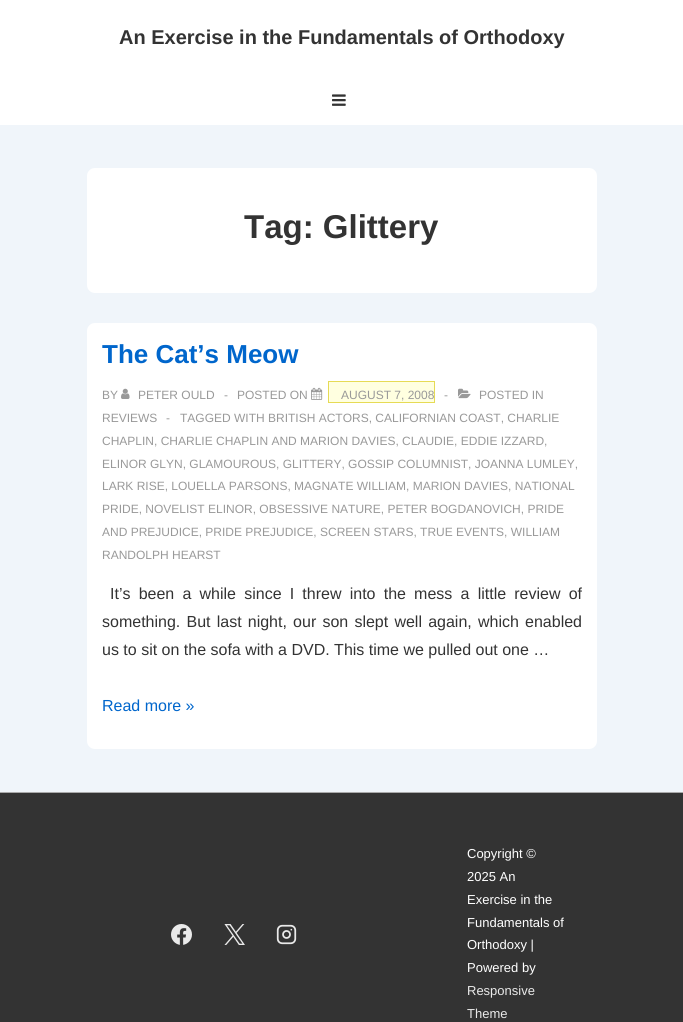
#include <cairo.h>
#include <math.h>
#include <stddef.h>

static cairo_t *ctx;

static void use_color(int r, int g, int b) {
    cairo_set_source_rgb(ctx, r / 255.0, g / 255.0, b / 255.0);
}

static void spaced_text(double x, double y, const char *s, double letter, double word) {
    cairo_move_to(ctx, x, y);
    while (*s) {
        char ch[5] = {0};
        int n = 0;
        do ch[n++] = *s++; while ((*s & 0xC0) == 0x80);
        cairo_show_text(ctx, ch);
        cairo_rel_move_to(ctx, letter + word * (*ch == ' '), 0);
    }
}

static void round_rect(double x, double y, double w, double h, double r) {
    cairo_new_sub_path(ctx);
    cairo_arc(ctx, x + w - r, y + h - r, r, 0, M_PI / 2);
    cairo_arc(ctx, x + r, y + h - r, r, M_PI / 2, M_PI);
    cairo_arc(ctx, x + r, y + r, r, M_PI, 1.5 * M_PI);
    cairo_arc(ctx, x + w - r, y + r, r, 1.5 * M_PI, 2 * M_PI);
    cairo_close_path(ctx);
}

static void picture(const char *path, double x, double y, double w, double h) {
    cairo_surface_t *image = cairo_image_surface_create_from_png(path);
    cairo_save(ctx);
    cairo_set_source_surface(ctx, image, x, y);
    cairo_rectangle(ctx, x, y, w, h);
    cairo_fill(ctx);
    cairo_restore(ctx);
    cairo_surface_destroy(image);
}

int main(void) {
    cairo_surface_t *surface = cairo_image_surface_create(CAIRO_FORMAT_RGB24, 683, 1022);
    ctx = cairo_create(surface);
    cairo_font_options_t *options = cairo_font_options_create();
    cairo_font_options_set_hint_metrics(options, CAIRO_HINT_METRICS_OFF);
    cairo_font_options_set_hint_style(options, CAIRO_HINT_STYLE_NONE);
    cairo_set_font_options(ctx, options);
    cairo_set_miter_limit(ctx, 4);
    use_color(240, 245, 250);
    cairo_paint(ctx);
    use_color(255, 255, 255);
    cairo_rectangle(ctx, 0, 0, 683, 125);
    cairo_fill(ctx);
    cairo_select_font_face(ctx, "Liberation Sans", CAIRO_FONT_SLANT_NORMAL, CAIRO_FONT_WEIGHT_BOLD);
    cairo_set_font_size(ctx, 20);
    use_color(51, 51, 51);
    cairo_move_to(ctx, 119, 44);
    cairo_show_text(ctx, "An Exercise in the Fundamentals of Orthodoxy");
    picture("img1.png", 332, 94, 14, 12);
    use_color(255, 255, 255);
    round_rect(87, 168, 510, 125, 8);
    cairo_fill(ctx);
    cairo_set_font_size(ctx, 33);
    use_color(51, 51, 51);
    cairo_move_to(ctx, 244, 238);
    cairo_show_text(ctx, "Tag: Glittery");
    use_color(255, 255, 255);
    round_rect(87, 323, 510, 426, 8);
    cairo_fill(ctx);
    cairo_set_font_size(ctx, 26);
    use_color(0, 102, 204);
    cairo_move_to(ctx, 102, 363);
    cairo_show_text(ctx, "The Cat’s Meow");
    cairo_select_font_face(ctx, "Liberation Sans", CAIRO_FONT_SLANT_NORMAL, CAIRO_FONT_WEIGHT_NORMAL);
    cairo_set_font_size(ctx, 12);
    use_color(153, 153, 153);
    cairo_move_to(ctx, 102, 399);
    cairo_show_text(ctx, "BY");
    picture("img2.png", 121, 388, 9, 11);
    cairo_move_to(ctx, 138, 399);
    cairo_show_text(ctx, "PETER OULD");
    cairo_move_to(ctx, 224, 399);
    cairo_show_text(ctx, "-");
    cairo_move_to(ctx, 237, 399);
    cairo_show_text(ctx, "POSTED ON");
    picture("img3.png", 311, 387, 12, 13);
    use_color(255, 255, 224);
    cairo_rectangle(ctx, 328.5, 381.5, 106, 21);
    cairo_fill_preserve(ctx);
    use_color(230, 219, 85);
    cairo_set_line_width(ctx, 1);
    cairo_stroke(ctx);
    use_color(153, 153, 153);
    cairo_move_to(ctx, 341, 399);
    cairo_show_text(ctx, "AUGUST 7, 2008");
    cairo_move_to(ctx, 444, 399);
    cairo_show_text(ctx, "-");
    picture("img4.png", 458, 388, 13, 11);
    cairo_move_to(ctx, 479, 399);
    cairo_show_text(ctx, "POSTED IN");
    cairo_move_to(ctx, 102, 422);
    cairo_show_text(ctx, "REVIEWS");
    cairo_move_to(ctx, 166, 422);
    cairo_show_text(ctx, "-");
    cairo_move_to(ctx, 180, 422);
    cairo_show_text(ctx, "TAGGED WITH BRITISH ACTORS, CALIFORNIAN COAST, CHARLIE");
    cairo_move_to(ctx, 102, 445);
    cairo_show_text(ctx, "CHAPLIN, CHARLIE CHAPLIN AND MARION DAVIES, CLAUDIE, EDDIE IZZARD,");
    cairo_move_to(ctx, 102, 468);
    cairo_show_text(ctx, "ELINOR GLYN, GLAMOUROUS, GLITTERY, GOSSIP COLUMNIST, JOANNA LUMLEY,");
    cairo_move_to(ctx, 102, 490);
    cairo_show_text(ctx, "LARK RISE, LOUELLA PARSONS, MAGNATE WILLIAM, MARION DAVIES, NATIONAL");
    cairo_move_to(ctx, 102, 513);
    cairo_show_text(ctx, "PRIDE, NOVELIST ELINOR, OBSESSIVE NATURE, PETER BOGDANOVICH, PRIDE");
    cairo_move_to(ctx, 102, 536);
    cairo_show_text(ctx, "AND PREJUDICE, PRIDE PREJUDICE, SCREEN STARS, TRUE EVENTS, WILLIAM");
    cairo_move_to(ctx, 102, 559);
    cairo_show_text(ctx, "RANDOLPH HEARST");
    cairo_set_font_size(ctx, 16);
    use_color(51, 51, 51);
    spaced_text(110, 599, "It’s been a while since I threw into the mess a little review of", 0, 3.75);
    spaced_text(102, 627, "something. But last night, our son slept well again, which enabled", 0, 1.75);
    cairo_move_to(ctx, 102, 655);
    cairo_show_text(ctx, "us to sit on the sofa with a DVD. This time we pulled out one …");
    use_color(0, 102, 204);
    cairo_move_to(ctx, 102, 711);
    cairo_show_text(ctx, "Read more »");
    use_color(51, 51, 51);
    cairo_rectangle(ctx, 0, 793, 683, 229);
    cairo_fill(ctx);
    use_color(170, 170, 170);
    cairo_rectangle(ctx, 0, 792, 683, 1);
    cairo_fill(ctx);
    picture("img5.png", 171, 924, 21, 21);
    picture("img6.png", 224, 924, 21, 21);
    picture("img7.png", 276, 924, 21, 21);
    cairo_set_font_size(ctx, 13);
    use_color(255, 255, 255);
    cairo_move_to(ctx, 467, 858);
    cairo_show_text(ctx, "Copyright ©");
    cairo_move_to(ctx, 467, 881);
    cairo_show_text(ctx, "2025 An");
    cairo_move_to(ctx, 467, 904);
    cairo_show_text(ctx, "Exercise in the");
    cairo_move_to(ctx, 467, 927);
    cairo_show_text(ctx, "Fundamentals of");
    cairo_move_to(ctx, 467, 949);
    cairo_show_text(ctx, "Orthodoxy |");
    cairo_move_to(ctx, 467, 972);
    cairo_show_text(ctx, "Powered by");
    use_color(234, 234, 234);
    cairo_move_to(ctx, 467, 995);
    cairo_show_text(ctx, "Responsive");
    cairo_move_to(ctx, 467, 1018);
    cairo_show_text(ctx, "Theme");
    cairo_surface_write_to_png(surface, "result.png");
    cairo_font_options_destroy(options);
    cairo_destroy(ctx);
    cairo_surface_destroy(surface);
    return 0;
}
